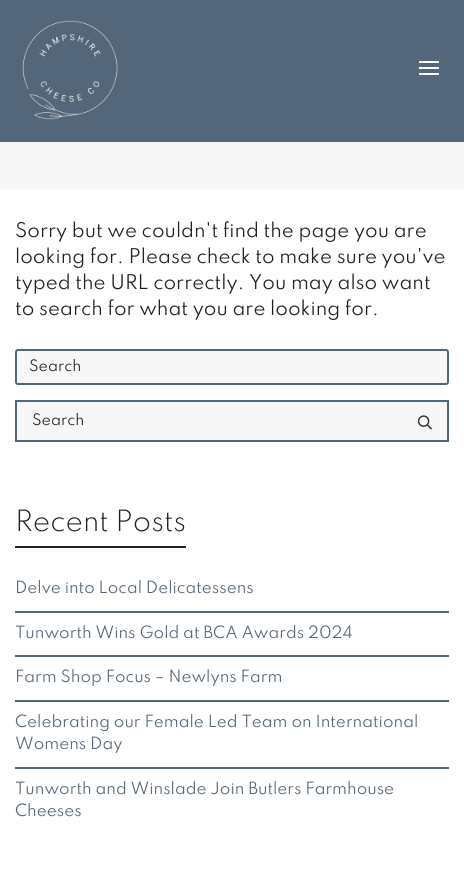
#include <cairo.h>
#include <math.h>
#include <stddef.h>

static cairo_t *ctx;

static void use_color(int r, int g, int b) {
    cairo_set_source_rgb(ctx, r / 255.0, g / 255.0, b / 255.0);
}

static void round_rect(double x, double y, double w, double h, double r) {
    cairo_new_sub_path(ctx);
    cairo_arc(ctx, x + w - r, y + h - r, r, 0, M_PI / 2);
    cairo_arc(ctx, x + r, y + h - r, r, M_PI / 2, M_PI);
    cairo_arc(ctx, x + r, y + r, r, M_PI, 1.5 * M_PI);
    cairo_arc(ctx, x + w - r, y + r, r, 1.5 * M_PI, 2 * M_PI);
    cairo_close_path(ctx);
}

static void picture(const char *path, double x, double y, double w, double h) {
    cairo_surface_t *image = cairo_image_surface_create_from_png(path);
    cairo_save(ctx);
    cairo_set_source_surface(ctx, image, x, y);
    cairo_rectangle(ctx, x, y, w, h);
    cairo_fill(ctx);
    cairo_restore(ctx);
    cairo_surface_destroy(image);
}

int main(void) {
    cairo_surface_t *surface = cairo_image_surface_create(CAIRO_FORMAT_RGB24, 464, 890);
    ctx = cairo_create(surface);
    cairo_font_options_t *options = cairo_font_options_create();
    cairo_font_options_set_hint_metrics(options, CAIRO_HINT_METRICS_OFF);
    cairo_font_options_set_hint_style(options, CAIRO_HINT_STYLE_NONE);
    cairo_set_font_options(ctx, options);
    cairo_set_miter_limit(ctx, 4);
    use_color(255, 255, 255);
    cairo_paint(ctx);
    use_color(84, 102, 121);
    cairo_rectangle(ctx, 0, 0, 464, 142);
    cairo_fill(ctx);
    picture("img1.png", 22, 20, 96, 100);
    use_color(255, 255, 255);
    cairo_rectangle(ctx, 419, 67, 20, 2);
    cairo_fill(ctx);
    cairo_rectangle(ctx, 419, 61, 20, 2);
    cairo_fill(ctx);
    cairo_rectangle(ctx, 419, 73, 20, 2);
    cairo_fill(ctx);
    use_color(247, 247, 247);
    cairo_rectangle(ctx, 0, 142, 464, 47);
    cairo_fill(ctx);
    cairo_select_font_face(ctx, "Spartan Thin", CAIRO_FONT_SLANT_NORMAL, CAIRO_FONT_WEIGHT_NORMAL);
    cairo_set_font_size(ctx, 18);
    use_color(34, 34, 34);
    cairo_move_to(ctx, 15, 237);
    cairo_show_text(ctx, "Sorry but we couldn't find the page you are");
    cairo_move_to(ctx, 15, 263);
    cairo_show_text(ctx, "looking for. Please check to make sure you've");
    cairo_move_to(ctx, 15, 289);
    cairo_show_text(ctx, "typed the URL correctly. You may also want");
    cairo_move_to(ctx, 15, 315);
    cairo_show_text(ctx, "to search for what you are looking for.");
    use_color(247, 247, 247);
    round_rect(16, 350, 432, 34, 2);
    cairo_fill_preserve(ctx);
    use_color(84, 102, 121);
    cairo_stroke(ctx);
    cairo_set_font_size(ctx, 14);
    use_color(34, 34, 34);
    cairo_move_to(ctx, 29, 371);
    cairo_show_text(ctx, "Search");
    use_color(247, 247, 247);
    cairo_rectangle(ctx, 16, 401, 432, 40);
    cairo_fill_preserve(ctx);
    use_color(84, 102, 121);
    cairo_stroke(ctx);
    use_color(34, 34, 34);
    cairo_move_to(ctx, 32, 425);
    cairo_show_text(ctx, "Search");
    picture("img2.png", 417, 415, 15, 15);
    cairo_rectangle(ctx, 15, 546, 171, 2);
    cairo_fill(ctx);
    cairo_select_font_face(ctx, "Spartan Thin Light", CAIRO_FONT_SLANT_NORMAL, CAIRO_FONT_WEIGHT_NORMAL);
    cairo_set_font_size(ctx, 26);
    cairo_move_to(ctx, 15, 531);
    cairo_show_text(ctx, "Recent Posts");
    cairo_select_font_face(ctx, "Spartan Thin", CAIRO_FONT_SLANT_NORMAL, CAIRO_FONT_WEIGHT_NORMAL);
    cairo_set_font_size(ctx, 15);
    use_color(84, 102, 121);
    cairo_move_to(ctx, 15, 593);
    cairo_show_text(ctx, "Delve into Local Delicatessens");
    cairo_rectangle(ctx, 15, 611, 434, 2);
    cairo_fill(ctx);
    cairo_move_to(ctx, 15, 638);
    cairo_show_text(ctx, "Tunworth Wins Gold at BCA Awards 2024");
    cairo_rectangle(ctx, 15, 655, 434, 2);
    cairo_fill(ctx);
    cairo_move_to(ctx, 15, 682);
    cairo_show_text(ctx, "Farm Shop Focus – Newlyns Farm");
    cairo_rectangle(ctx, 15, 700, 434, 2);
    cairo_fill(ctx);
    cairo_move_to(ctx, 15, 727);
    cairo_show_text(ctx, "Celebrating our Female Led Team on International");
    cairo_move_to(ctx, 15, 749);
    cairo_show_text(ctx, "Womens Day");
    cairo_rectangle(ctx, 15, 767, 434, 2);
    cairo_fill(ctx);
    cairo_move_to(ctx, 15, 794);
    cairo_show_text(ctx, "Tunworth and Winslade Join Butlers Farmhouse");
    cairo_move_to(ctx, 15, 816);
    cairo_show_text(ctx, "Cheeses");
    cairo_surface_write_to_png(surface, "result.png");
    cairo_font_options_destroy(options);
    cairo_destroy(ctx);
    cairo_surface_destroy(surface);
    return 0;
}
